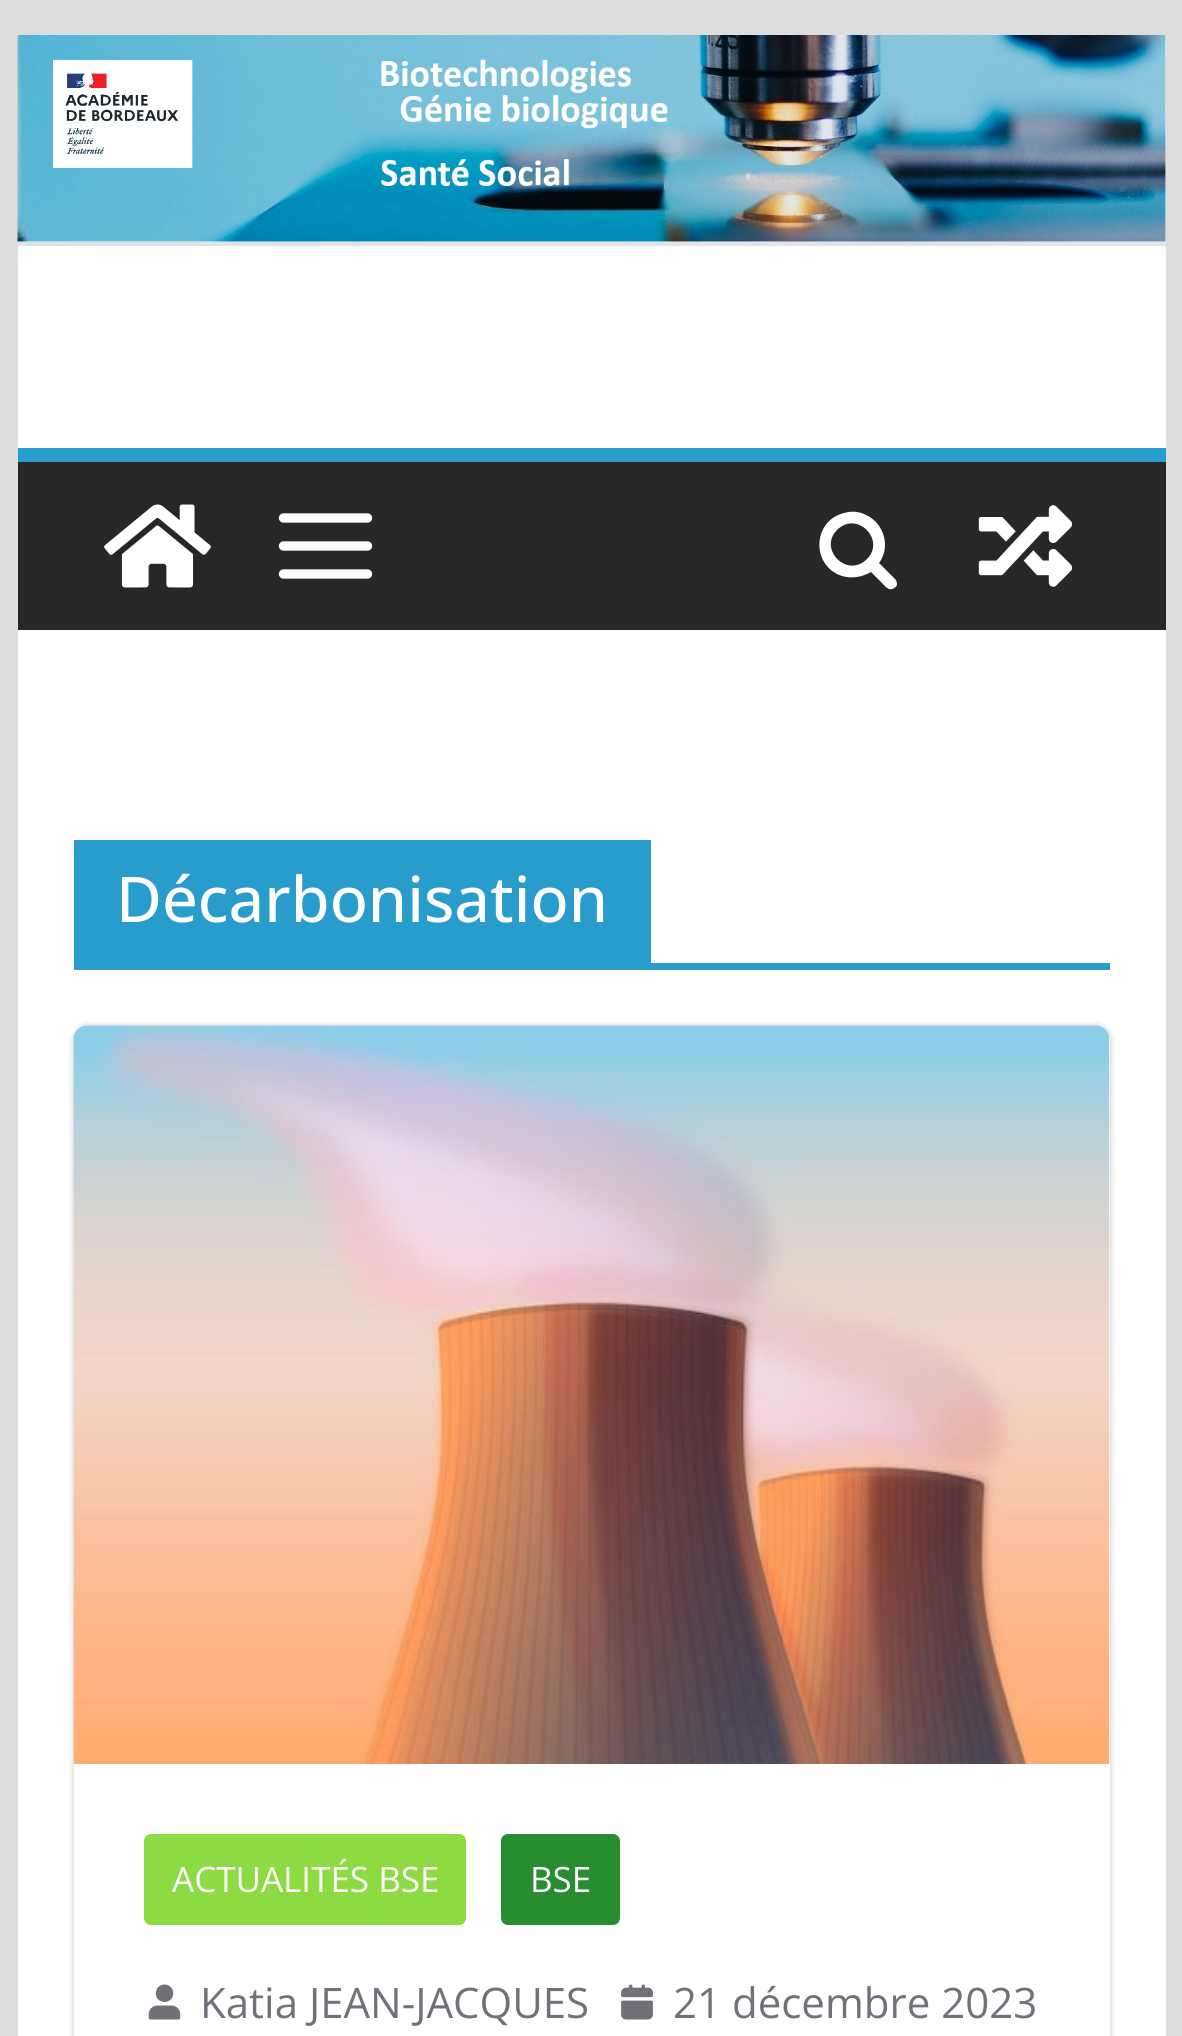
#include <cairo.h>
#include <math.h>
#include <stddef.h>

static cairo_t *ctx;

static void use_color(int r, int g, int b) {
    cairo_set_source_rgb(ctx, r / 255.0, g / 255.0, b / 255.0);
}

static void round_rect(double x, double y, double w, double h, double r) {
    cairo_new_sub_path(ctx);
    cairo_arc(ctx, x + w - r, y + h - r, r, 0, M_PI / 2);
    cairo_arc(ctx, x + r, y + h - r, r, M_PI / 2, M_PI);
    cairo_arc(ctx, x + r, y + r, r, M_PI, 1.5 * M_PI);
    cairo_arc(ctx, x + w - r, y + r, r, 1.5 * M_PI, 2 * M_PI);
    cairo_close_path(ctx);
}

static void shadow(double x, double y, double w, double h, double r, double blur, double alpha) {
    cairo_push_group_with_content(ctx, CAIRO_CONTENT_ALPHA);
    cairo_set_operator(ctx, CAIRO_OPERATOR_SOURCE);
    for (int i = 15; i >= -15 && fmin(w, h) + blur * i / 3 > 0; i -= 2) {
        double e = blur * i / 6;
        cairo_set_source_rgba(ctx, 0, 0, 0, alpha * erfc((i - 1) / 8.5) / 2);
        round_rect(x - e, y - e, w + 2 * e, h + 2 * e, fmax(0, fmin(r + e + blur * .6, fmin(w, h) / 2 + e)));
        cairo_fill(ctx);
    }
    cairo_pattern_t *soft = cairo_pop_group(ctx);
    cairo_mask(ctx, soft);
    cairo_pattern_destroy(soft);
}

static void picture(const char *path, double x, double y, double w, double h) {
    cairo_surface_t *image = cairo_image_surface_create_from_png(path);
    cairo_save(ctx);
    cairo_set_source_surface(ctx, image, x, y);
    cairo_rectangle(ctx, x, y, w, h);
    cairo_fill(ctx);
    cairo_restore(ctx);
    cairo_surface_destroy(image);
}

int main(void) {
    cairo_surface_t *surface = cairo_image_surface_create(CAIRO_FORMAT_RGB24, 1182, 2036);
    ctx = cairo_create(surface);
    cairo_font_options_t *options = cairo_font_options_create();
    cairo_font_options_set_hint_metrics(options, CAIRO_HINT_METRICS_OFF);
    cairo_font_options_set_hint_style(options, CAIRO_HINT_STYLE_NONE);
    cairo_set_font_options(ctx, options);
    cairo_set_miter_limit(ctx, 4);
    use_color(221, 221, 221);
    cairo_paint(ctx);
    use_color(255, 255, 255);
    cairo_rectangle(ctx, 18, 35, 1148, 413);
    cairo_fill(ctx);
    picture("img1.png", 17, 35, 1149, 207);
    use_color(228, 228, 231);
    cairo_rectangle(ctx, 18, 242, 1148, 4);
    cairo_fill(ctx);
    picture("img2.png", 53, 60, 140, 108);
    use_color(39, 39, 42);
    cairo_rectangle(ctx, 18, 462, 1148, 168);
    cairo_fill(ctx);
    use_color(40, 157, 204);
    cairo_rectangle(ctx, 18, 448, 1148, 14);
    cairo_fill(ctx);
    picture("img3.png", 104, 504, 107, 84);
    picture("img4.png", 278, 513, 95, 66);
    use_color(255, 255, 255);
    cairo_new_path(ctx);
    cairo_move_to(ctx, 867, 559);
    cairo_curve_to(ctx, 886, 540, 857, 510, 837, 530);
    cairo_curve_to(ctx, 818, 549, 847, 579, 867, 559);
    cairo_close_path(ctx);
    cairo_move_to(ctx, 897, 584);
    cairo_curve_to(ctx, 897, 586, 896, 587, 894, 588);
    cairo_curve_to(ctx, 889, 592, 885, 586, 881, 582);
    cairo_line_to(ctx, 871, 572);
    cairo_curve_to(ctx, 862, 577, 852, 579, 842, 576);
    cairo_curve_to(ctx, 811, 566, 812, 521, 844, 513);
    cairo_curve_to(ctx, 851, 511, 859, 511, 866, 515);
    cairo_curve_to(ctx, 884, 523, 891, 547, 879, 563);
    cairo_line_to(ctx, 895, 579);
    cairo_curve_to(ctx, 896, 580, 897, 582, 897, 584);
    cairo_close_path(ctx);
    cairo_fill(ctx);
    picture("img5.png", 978, 505, 95, 82);
    cairo_rectangle(ctx, 18, 630, 1148, 1406);
    cairo_fill(ctx);
    use_color(40, 157, 204);
    cairo_rectangle(ctx, 74, 963, 1036, 7);
    cairo_fill(ctx);
    cairo_rectangle(ctx, 74, 840, 577, 123);
    cairo_fill(ctx);
    cairo_select_font_face(ctx, "Open Sans Medium", CAIRO_FONT_SLANT_NORMAL, CAIRO_FONT_WEIGHT_NORMAL);
    cairo_set_font_size(ctx, 63);
    use_color(255, 255, 255);
    cairo_move_to(ctx, 116, 922);
    cairo_show_text(ctx, "Décarbonisation");
    cairo_save(ctx);
    cairo_set_fill_rule(ctx, CAIRO_FILL_RULE_EVEN_ODD);
    cairo_new_path(ctx);
    cairo_move_to(ctx, 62, 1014);
    cairo_line_to(ctx, 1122, 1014);
    cairo_line_to(ctx, 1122, 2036);
    cairo_line_to(ctx, 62, 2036);
    cairo_close_path(ctx);
    cairo_move_to(ctx, 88, 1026);
    cairo_line_to(ctx, 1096, 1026);
    cairo_curve_to(ctx, 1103.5, 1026, 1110, 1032.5, 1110, 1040);
    cairo_line_to(ctx, 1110, 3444);
    cairo_curve_to(ctx, 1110, 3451.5, 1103.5, 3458, 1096, 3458);
    cairo_line_to(ctx, 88, 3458);
    cairo_curve_to(ctx, 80.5, 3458, 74, 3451.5, 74, 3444);
    cairo_line_to(ctx, 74, 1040);
    cairo_curve_to(ctx, 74, 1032.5, 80.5, 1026, 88, 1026);
    cairo_close_path(ctx);
    cairo_clip(ctx);
    use_color(0, 0, 0);
    shadow(74, 1026, 1036, 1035, 14, 3.5, 0.24);
    cairo_restore(ctx);
    picture("img6.png", 73, 1025, 1037, 739);
    use_color(141, 219, 67);
    round_rect(144, 1834, 322, 91, 7);
    cairo_fill(ctx);
    cairo_select_font_face(ctx, "Open Sans", CAIRO_FONT_SLANT_NORMAL, CAIRO_FONT_WEIGHT_NORMAL);
    cairo_set_font_size(ctx, 35);
    use_color(255, 255, 255);
    cairo_move_to(ctx, 172, 1892);
    cairo_show_text(ctx, "ACTUALITÉS BSE");
    use_color(40, 140, 48);
    round_rect(501, 1834, 119, 91, 7);
    cairo_fill(ctx);
    use_color(255, 255, 255);
    cairo_move_to(ctx, 530, 1892);
    cairo_show_text(ctx, "BSE");
    picture("img7.png", 148, 1984, 33, 36);
    cairo_set_font_size(ctx, 42);
    use_color(113, 113, 122);
    cairo_move_to(ctx, 200, 2018);
    cairo_show_text(ctx, "Katia JEAN-JACQUES");
    picture("img8.png", 621, 1984, 32, 36);
    cairo_move_to(ctx, 673, 2018);
    cairo_show_text(ctx, "21 décembre 2023");
    cairo_surface_write_to_png(surface, "result.png");
    cairo_font_options_destroy(options);
    cairo_destroy(ctx);
    cairo_surface_destroy(surface);
    return 0;
}
